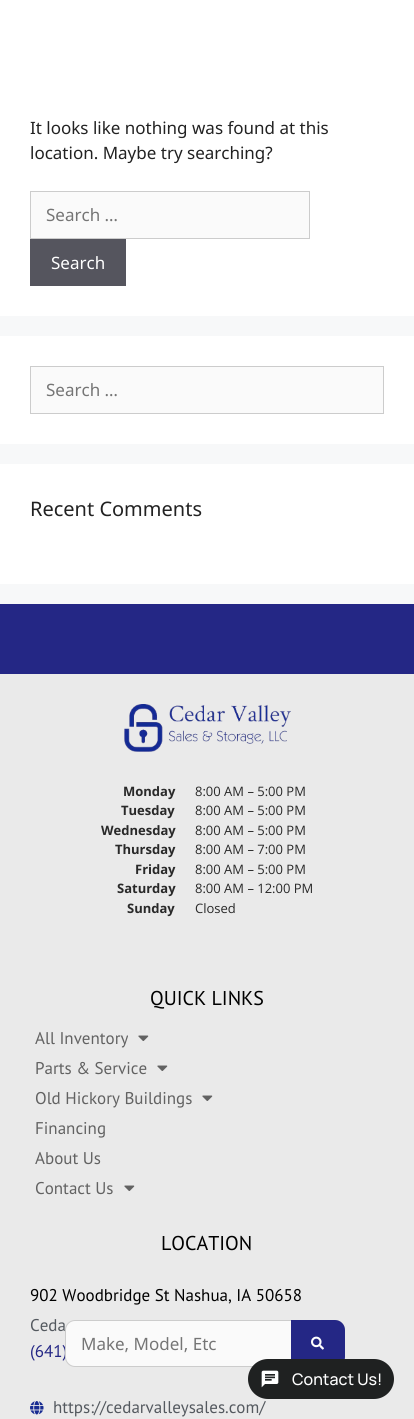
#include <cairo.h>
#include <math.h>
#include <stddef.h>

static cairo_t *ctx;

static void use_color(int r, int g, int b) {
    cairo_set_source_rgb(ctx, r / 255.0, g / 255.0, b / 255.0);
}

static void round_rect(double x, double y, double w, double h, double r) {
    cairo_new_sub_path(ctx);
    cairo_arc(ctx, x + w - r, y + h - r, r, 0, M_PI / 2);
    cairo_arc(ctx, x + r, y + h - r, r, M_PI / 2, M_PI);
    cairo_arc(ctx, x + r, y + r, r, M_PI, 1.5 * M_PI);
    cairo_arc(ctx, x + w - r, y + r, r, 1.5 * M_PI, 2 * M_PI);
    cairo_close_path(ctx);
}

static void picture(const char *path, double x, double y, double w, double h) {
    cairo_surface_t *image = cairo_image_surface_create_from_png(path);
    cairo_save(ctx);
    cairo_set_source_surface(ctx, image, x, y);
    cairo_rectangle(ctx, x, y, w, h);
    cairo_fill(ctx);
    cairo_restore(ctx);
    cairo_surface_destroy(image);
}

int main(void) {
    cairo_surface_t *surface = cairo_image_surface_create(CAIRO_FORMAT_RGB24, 414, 1419);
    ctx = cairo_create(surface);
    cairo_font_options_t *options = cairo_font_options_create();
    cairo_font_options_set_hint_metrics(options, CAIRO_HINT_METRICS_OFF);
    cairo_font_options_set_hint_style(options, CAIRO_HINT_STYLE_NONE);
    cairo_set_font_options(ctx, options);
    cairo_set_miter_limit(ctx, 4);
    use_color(247, 248, 249);
    cairo_paint(ctx);
    use_color(255, 255, 255);
    cairo_rectangle(ctx, 0, 0, 414, 316);
    cairo_fill(ctx);
    cairo_select_font_face(ctx, "Noto Sans", CAIRO_FONT_SLANT_NORMAL, CAIRO_FONT_WEIGHT_NORMAL);
    cairo_set_font_size(ctx, 17);
    use_color(34, 34, 34);
    cairo_move_to(ctx, 30, 134);
    cairo_show_text(ctx, "It looks like nothing was found at this");
    cairo_move_to(ctx, 30, 159);
    cairo_show_text(ctx, "location. Maybe try searching?");
    use_color(250, 250, 250);
    cairo_rectangle(ctx, 30.5, 191.5, 279, 47);
    cairo_fill_preserve(ctx);
    use_color(204, 204, 204);
    cairo_set_line_width(ctx, 1);
    cairo_stroke(ctx);
    use_color(117, 117, 117);
    cairo_move_to(ctx, 46, 221);
    cairo_show_text(ctx, "Search …");
    use_color(85, 85, 94);
    cairo_rectangle(ctx, 30, 239, 96, 47);
    cairo_fill(ctx);
    use_color(255, 255, 255);
    cairo_move_to(ctx, 51, 269);
    cairo_show_text(ctx, "Search");
    cairo_rectangle(ctx, 0, 336, 414, 108);
    cairo_fill(ctx);
    use_color(250, 250, 250);
    cairo_rectangle(ctx, 30.5, 366.5, 353, 47);
    cairo_fill_preserve(ctx);
    use_color(204, 204, 204);
    cairo_stroke(ctx);
    use_color(117, 117, 117);
    cairo_move_to(ctx, 46, 396);
    cairo_show_text(ctx, "Search …");
    use_color(255, 255, 255);
    cairo_rectangle(ctx, 0, 464, 414, 120);
    cairo_fill(ctx);
    cairo_set_font_size(ctx, 20);
    use_color(34, 34, 34);
    cairo_move_to(ctx, 30, 516);
    cairo_show_text(ctx, "Recent Comments");
    use_color(36, 39, 133);
    cairo_rectangle(ctx, 0, 604, 414, 70);
    cairo_fill(ctx);
    use_color(234, 234, 234);
    cairo_rectangle(ctx, 0, 674, 414, 745);
    cairo_fill(ctx);
    picture("img1.png", 124, 704, 167, 48);
    cairo_select_font_face(ctx, "Open Sans", CAIRO_FONT_SLANT_NORMAL, CAIRO_FONT_WEIGHT_BOLD);
    cairo_set_font_size(ctx, 13);
    use_color(41, 41, 41);
    cairo_move_to(ctx, 123, 796);
    cairo_show_text(ctx, "Monday");
    cairo_move_to(ctx, 121, 815);
    cairo_show_text(ctx, "Tuesday");
    cairo_move_to(ctx, 101, 835);
    cairo_show_text(ctx, "Wednesday");
    cairo_move_to(ctx, 115, 854);
    cairo_show_text(ctx, "Thursday");
    cairo_move_to(ctx, 135, 874);
    cairo_show_text(ctx, "Friday");
    cairo_move_to(ctx, 117, 893);
    cairo_show_text(ctx, "Saturday");
    cairo_move_to(ctx, 127, 913);
    cairo_show_text(ctx, "Sunday");
    cairo_select_font_face(ctx, "Open Sans", CAIRO_FONT_SLANT_NORMAL, CAIRO_FONT_WEIGHT_NORMAL);
    cairo_move_to(ctx, 195, 796);
    cairo_show_text(ctx, "8:00 AM – 5:00 PM");
    cairo_move_to(ctx, 195, 815);
    cairo_show_text(ctx, "8:00 AM – 5:00 PM");
    cairo_move_to(ctx, 195, 835);
    cairo_show_text(ctx, "8:00 AM – 5:00 PM");
    cairo_move_to(ctx, 195, 854);
    cairo_show_text(ctx, "8:00 AM – 7:00 PM");
    cairo_move_to(ctx, 195, 874);
    cairo_show_text(ctx, "8:00 AM – 5:00 PM");
    cairo_move_to(ctx, 195, 893);
    cairo_show_text(ctx, "8:00 AM – 12:00 PM");
    cairo_move_to(ctx, 195, 913);
    cairo_show_text(ctx, "Closed");
    cairo_select_font_face(ctx, "PT Sans", CAIRO_FONT_SLANT_NORMAL, CAIRO_FONT_WEIGHT_NORMAL);
    cairo_set_font_size(ctx, 20);
    use_color(0, 0, 0);
    cairo_move_to(ctx, 150, 1005);
    cairo_show_text(ctx, "QUICK LINKS");
    cairo_set_font_size(ctx, 17);
    use_color(98, 98, 98);
    cairo_move_to(ctx, 35, 1044);
    cairo_show_text(ctx, "All Inventory");
    picture("img2.png", 138, 1035, 11, 6);
    cairo_move_to(ctx, 35, 1074);
    cairo_show_text(ctx, "Parts & Service");
    picture("img2.png", 157, 1065, 11, 6);
    cairo_move_to(ctx, 35, 1104);
    cairo_show_text(ctx, "Old Hickory Buildings");
    picture("img2.png", 202, 1095, 11, 6);
    cairo_move_to(ctx, 35, 1134);
    cairo_show_text(ctx, "Financing");
    cairo_move_to(ctx, 35, 1164);
    cairo_show_text(ctx, "About Us");
    cairo_move_to(ctx, 35, 1194);
    cairo_show_text(ctx, "Contact Us");
    picture("img2.png", 124, 1185, 11, 6);
    cairo_set_font_size(ctx, 20);
    use_color(0, 0, 0);
    cairo_move_to(ctx, 161, 1250);
    cairo_show_text(ctx, "LOCATION");
    cairo_set_font_size(ctx, 17);
    cairo_move_to(ctx, 30, 1301);
    cairo_show_text(ctx, "902 Woodbridge St Nashua, IA 50658");
    use_color(84, 89, 95);
    cairo_move_to(ctx, 30, 1331);
    cairo_show_text(ctx, "Ceda");
    use_color(36, 39, 133);
    cairo_move_to(ctx, 30, 1357);
    cairo_show_text(ctx, "(641)");
    picture("img3.png", 30, 1401, 14, 14);
    use_color(84, 89, 95);
    cairo_move_to(ctx, 53, 1413);
    cairo_show_text(ctx, "https://cedarvalleysales.com/");
    use_color(250, 250, 250);
    round_rect(65.5, 1320.5, 279, 46, 9.5);
    cairo_fill_preserve(ctx);
    use_color(204, 204, 204);
    cairo_stroke(ctx);
    cairo_select_font_face(ctx, "Noto Sans", CAIRO_FONT_SLANT_NORMAL, CAIRO_FONT_WEIGHT_NORMAL);
    use_color(117, 117, 117);
    cairo_move_to(ctx, 81, 1350);
    cairo_show_text(ctx, "Make, Model, Etc");
    use_color(36, 39, 133);
    cairo_new_path(ctx);
    cairo_move_to(ctx, 291, 1320);
    cairo_line_to(ctx, 335, 1320);
    cairo_curve_to(ctx, 340.5, 1320, 345, 1324.5, 345, 1330);
    cairo_line_to(ctx, 345, 1357);
    cairo_curve_to(ctx, 345, 1362.5, 340.5, 1367, 335, 1367);
    cairo_line_to(ctx, 291, 1367);
    cairo_close_path(ctx);
    cairo_fill(ctx);
    picture("img4.png", 311, 1336, 13, 14);
    use_color(31, 33, 33);
    round_rect(248, 1359, 146, 40, 20);
    cairo_fill(ctx);
    picture("img5.png", 261, 1370, 18, 18);
    cairo_select_font_face(ctx, "Manrope Medium", CAIRO_FONT_SLANT_NORMAL, CAIRO_FONT_WEIGHT_NORMAL);
    cairo_set_font_size(ctx, 16);
    use_color(255, 255, 255);
    cairo_move_to(ctx, 292, 1385);
    cairo_show_text(ctx, "Contact Us!");
    cairo_surface_write_to_png(surface, "result.png");
    cairo_font_options_destroy(options);
    cairo_destroy(ctx);
    cairo_surface_destroy(surface);
    return 0;
}
